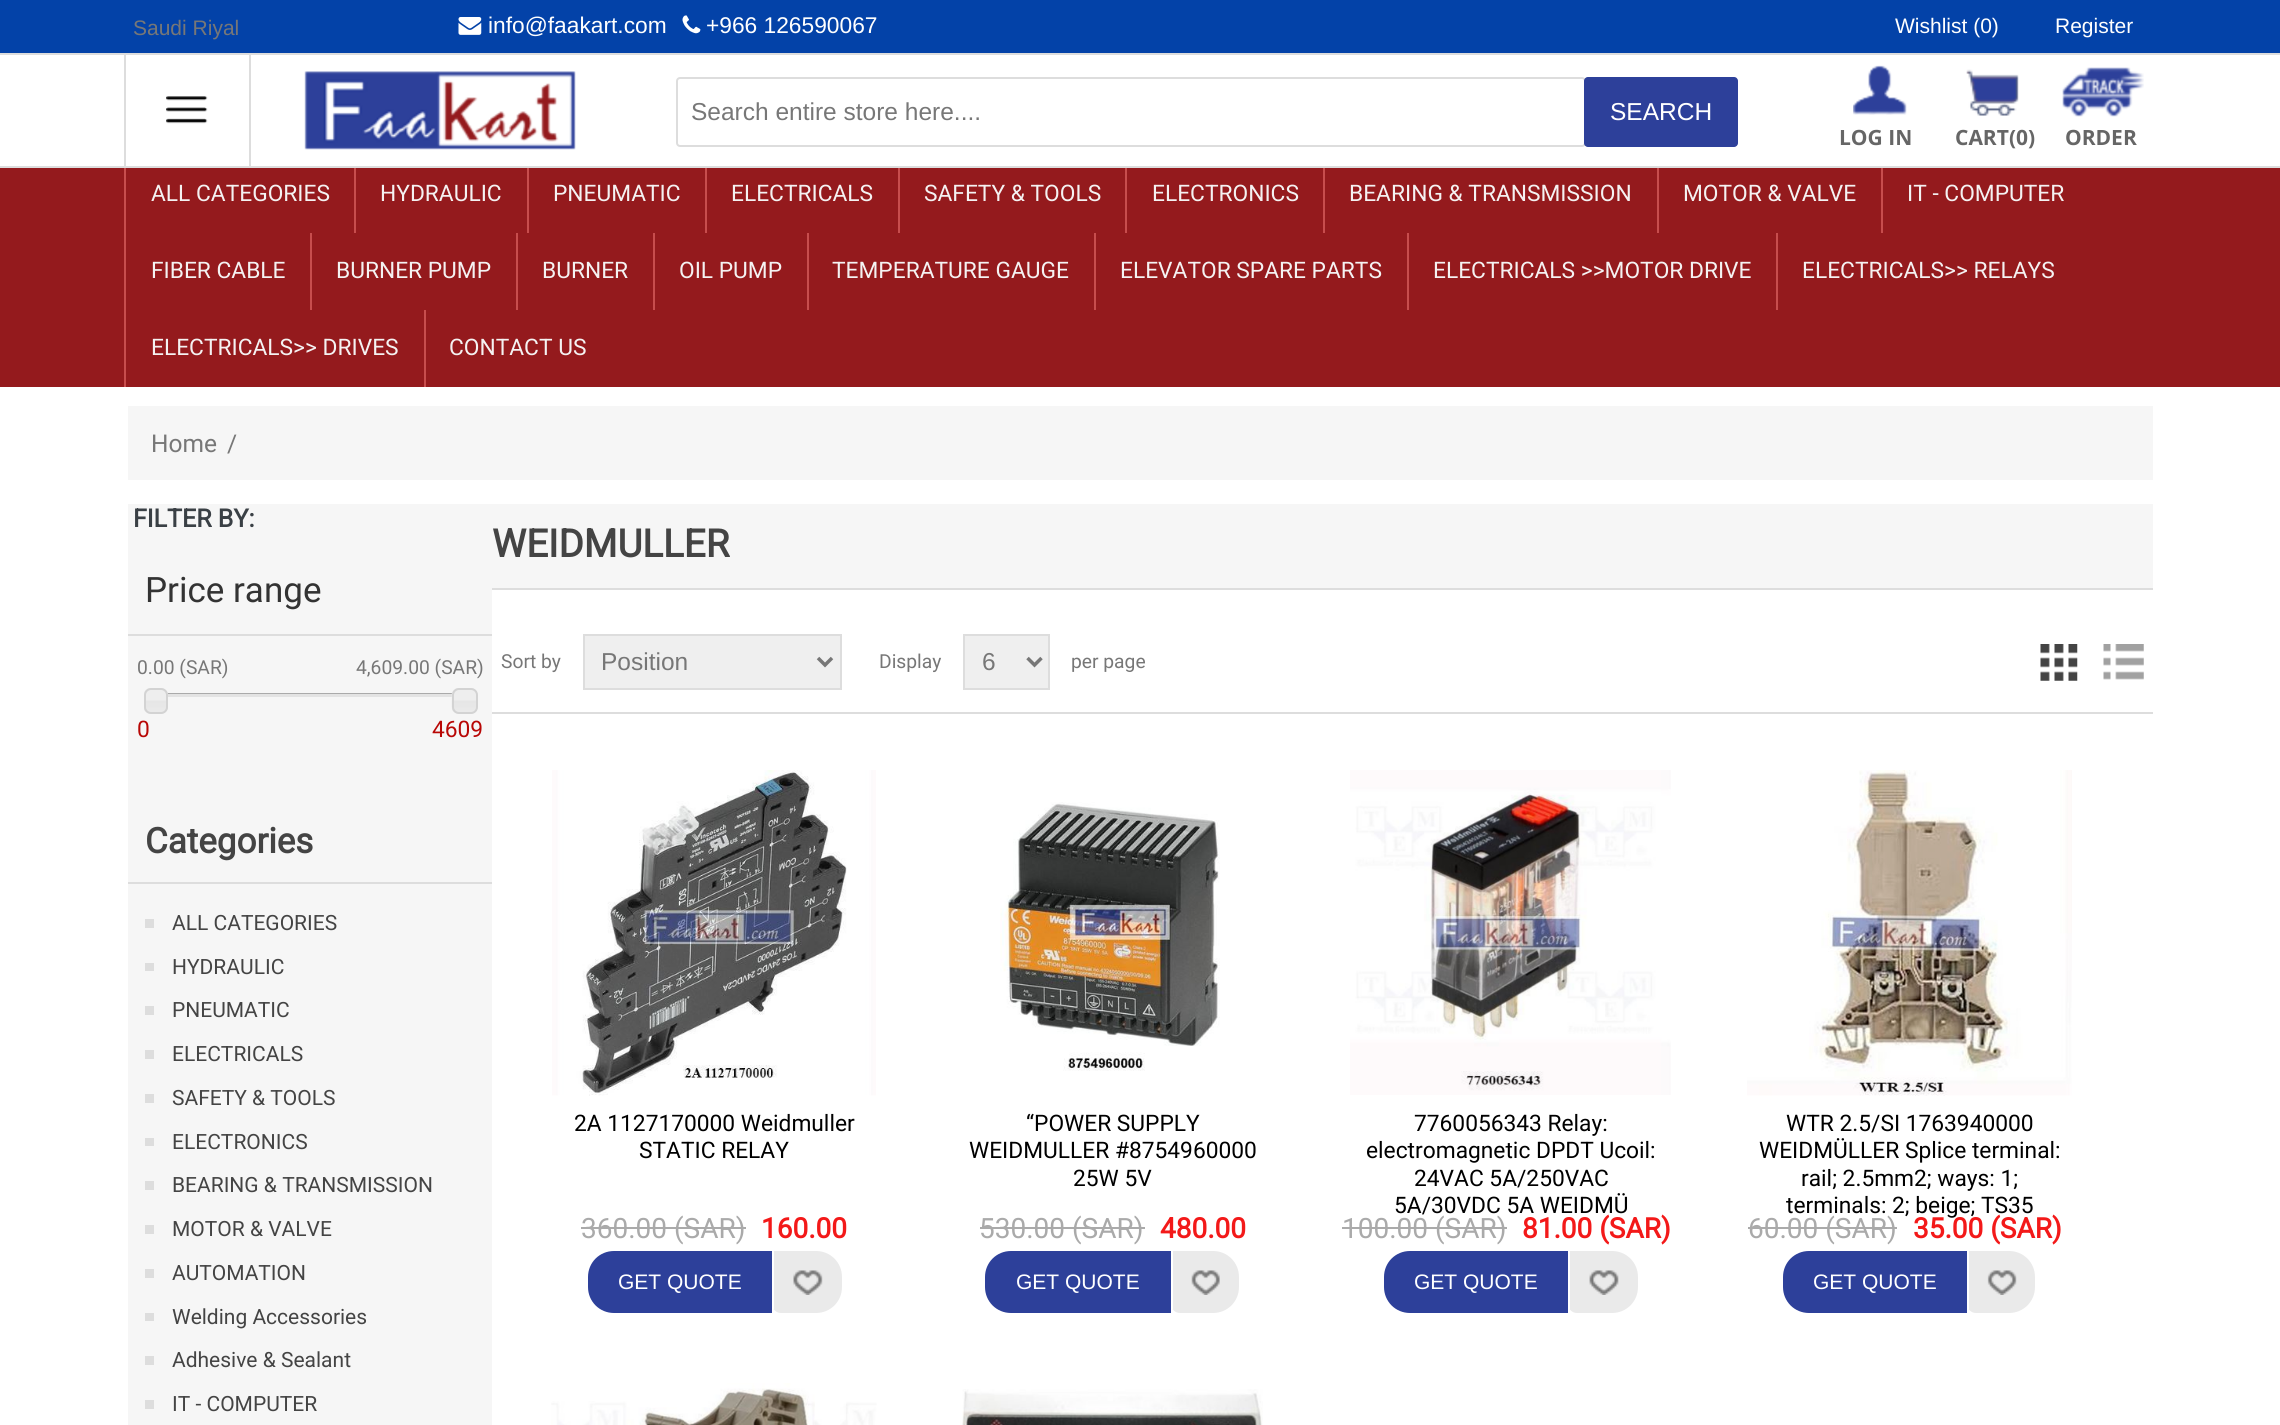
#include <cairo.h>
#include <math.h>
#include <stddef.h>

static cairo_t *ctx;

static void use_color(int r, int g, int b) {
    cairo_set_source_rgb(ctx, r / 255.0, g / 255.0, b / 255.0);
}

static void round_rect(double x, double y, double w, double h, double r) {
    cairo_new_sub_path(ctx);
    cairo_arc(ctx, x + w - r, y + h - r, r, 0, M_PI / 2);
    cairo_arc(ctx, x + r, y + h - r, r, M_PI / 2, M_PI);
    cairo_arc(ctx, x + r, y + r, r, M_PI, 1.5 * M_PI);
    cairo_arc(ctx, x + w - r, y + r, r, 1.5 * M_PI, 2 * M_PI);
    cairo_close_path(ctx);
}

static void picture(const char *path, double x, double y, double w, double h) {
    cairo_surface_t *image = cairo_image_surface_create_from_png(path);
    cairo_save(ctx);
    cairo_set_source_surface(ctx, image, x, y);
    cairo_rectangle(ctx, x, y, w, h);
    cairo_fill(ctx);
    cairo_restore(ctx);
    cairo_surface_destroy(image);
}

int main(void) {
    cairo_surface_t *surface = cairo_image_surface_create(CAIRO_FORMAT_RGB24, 2280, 1425);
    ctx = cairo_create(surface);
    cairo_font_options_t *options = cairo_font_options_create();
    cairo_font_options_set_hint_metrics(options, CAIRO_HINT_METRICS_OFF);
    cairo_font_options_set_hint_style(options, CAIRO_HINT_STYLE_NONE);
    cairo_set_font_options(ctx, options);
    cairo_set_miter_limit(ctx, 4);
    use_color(255, 255, 255);
    cairo_paint(ctx);
    use_color(3, 66, 168);
    cairo_rectangle(ctx, 0, 0, 2280, 53);
    cairo_fill(ctx);
    cairo_select_font_face(ctx, "Liberation Sans", CAIRO_FONT_SLANT_NORMAL, CAIRO_FONT_WEIGHT_NORMAL);
    cairo_set_font_size(ctx, 21);
    use_color(119, 119, 119);
    cairo_move_to(ctx, 133, 35);
    cairo_show_text(ctx, "Saudi Riyal");
    picture("img1.png", 458, 17, 24, 18);
    cairo_set_font_size(ctx, 22.75);
    use_color(255, 255, 255);
    cairo_move_to(ctx, 488, 33);
    cairo_show_text(ctx, "info@faakart.com");
    picture("img2.png", 682, 15, 19, 19);
    cairo_move_to(ctx, 706, 33);
    cairo_show_text(ctx, "+966 126590067");
    cairo_set_font_size(ctx, 21);
    cairo_move_to(ctx, 1895, 33);
    cairo_show_text(ctx, "Wishlist (0)");
    cairo_move_to(ctx, 2055, 33);
    cairo_show_text(ctx, "Register");
    use_color(221, 221, 221);
    cairo_rectangle(ctx, 0, 53, 2280, 2);
    cairo_fill(ctx);
    cairo_rectangle(ctx, 0, 166, 2280, 2);
    cairo_fill(ctx);
    cairo_rectangle(ctx, 249, 54, 2, 112);
    cairo_fill(ctx);
    cairo_rectangle(ctx, 124, 54, 2, 112);
    cairo_fill(ctx);
    picture("img3.png", 166, 96, 42, 28);
    picture("img4.png", 304, 71, 272, 79);
    round_rect(677, 78, 908, 68, 3);
    cairo_stroke(ctx);
    cairo_set_font_size(ctx, 24.5);
    use_color(119, 119, 119);
    cairo_move_to(ctx, 691, 120);
    cairo_show_text(ctx, "Search entire store here....");
    use_color(45, 64, 154);
    round_rect(1584, 77, 154, 70, 4);
    cairo_fill(ctx);
    use_color(255, 255, 255);
    cairo_move_to(ctx, 1610, 120);
    cairo_show_text(ctx, "SEARCH");
    picture("img5.png", 1853, 65, 54, 50);
    cairo_select_font_face(ctx, "Open Sans", CAIRO_FONT_SLANT_NORMAL, CAIRO_FONT_WEIGHT_BOLD);
    cairo_set_font_size(ctx, 21);
    use_color(102, 102, 102);
    cairo_move_to(ctx, 1839, 145);
    cairo_show_text(ctx, "LOG IN");
    picture("img6.png", 1966, 69, 53, 47);
    cairo_move_to(ctx, 1955, 145);
    cairo_show_text(ctx, "CART(0)");
    picture("img7.png", 2062, 67, 82, 50);
    cairo_move_to(ctx, 2065, 145);
    cairo_show_text(ctx, "ORDER");
    use_color(148, 26, 29);
    cairo_rectangle(ctx, 0, 168, 2280, 219);
    cairo_fill(ctx);
    use_color(199, 77, 77);
    cairo_rectangle(ctx, 124, 168, 2, 219);
    cairo_fill(ctx);
    cairo_select_font_face(ctx, "Roboto", CAIRO_FONT_SLANT_NORMAL, CAIRO_FONT_WEIGHT_NORMAL);
    cairo_set_font_size(ctx, 22.75);
    use_color(245, 242, 242);
    cairo_move_to(ctx, 151, 201);
    cairo_show_text(ctx, "ALL CATEGORIES");
    use_color(199, 77, 77);
    cairo_rectangle(ctx, 354, 168, 2, 65);
    cairo_fill(ctx);
    use_color(245, 242, 242);
    cairo_move_to(ctx, 380, 201);
    cairo_show_text(ctx, "HYDRAULIC");
    use_color(199, 77, 77);
    cairo_rectangle(ctx, 527, 168, 2, 65);
    cairo_fill(ctx);
    use_color(245, 242, 242);
    cairo_move_to(ctx, 553, 201);
    cairo_show_text(ctx, "PNEUMATIC");
    use_color(199, 77, 77);
    cairo_rectangle(ctx, 705, 168, 2, 65);
    cairo_fill(ctx);
    use_color(245, 242, 242);
    cairo_move_to(ctx, 731, 201);
    cairo_show_text(ctx, "ELECTRICALS");
    use_color(199, 77, 77);
    cairo_rectangle(ctx, 898, 168, 2, 65);
    cairo_fill(ctx);
    use_color(245, 242, 242);
    cairo_move_to(ctx, 924, 201);
    cairo_show_text(ctx, "SAFETY & TOOLS");
    use_color(199, 77, 77);
    cairo_rectangle(ctx, 1125, 168, 2, 65);
    cairo_fill(ctx);
    use_color(245, 242, 242);
    cairo_move_to(ctx, 1152, 201);
    cairo_show_text(ctx, "ELECTRONICS");
    use_color(199, 77, 77);
    cairo_rectangle(ctx, 1323, 168, 2, 65);
    cairo_fill(ctx);
    use_color(245, 242, 242);
    cairo_move_to(ctx, 1349, 201);
    cairo_show_text(ctx, "BEARING & TRANSMISSION");
    use_color(199, 77, 77);
    cairo_rectangle(ctx, 1657, 168, 2, 65);
    cairo_fill(ctx);
    use_color(245, 242, 242);
    cairo_move_to(ctx, 1683, 201);
    cairo_show_text(ctx, "MOTOR & VALVE");
    use_color(199, 77, 77);
    cairo_rectangle(ctx, 1881, 168, 2, 65);
    cairo_fill(ctx);
    use_color(245, 242, 242);
    cairo_move_to(ctx, 1907, 201);
    cairo_show_text(ctx, "IT - COMPUTER");
    cairo_move_to(ctx, 151, 278);
    cairo_show_text(ctx, "FIBER CABLE");
    use_color(199, 77, 77);
    cairo_rectangle(ctx, 310, 233, 2, 77);
    cairo_fill(ctx);
    use_color(245, 242, 242);
    cairo_move_to(ctx, 336, 278);
    cairo_show_text(ctx, "BURNER PUMP");
    use_color(199, 77, 77);
    cairo_rectangle(ctx, 516, 233, 2, 77);
    cairo_fill(ctx);
    use_color(245, 242, 242);
    cairo_move_to(ctx, 542, 278);
    cairo_show_text(ctx, "BURNER");
    use_color(199, 77, 77);
    cairo_rectangle(ctx, 653, 233, 2, 77);
    cairo_fill(ctx);
    use_color(245, 242, 242);
    cairo_move_to(ctx, 679, 278);
    cairo_show_text(ctx, "OIL PUMP");
    use_color(199, 77, 77);
    cairo_rectangle(ctx, 807, 233, 2, 77);
    cairo_fill(ctx);
    use_color(245, 242, 242);
    cairo_move_to(ctx, 832, 278);
    cairo_show_text(ctx, "TEMPERATURE GAUGE");
    use_color(199, 77, 77);
    cairo_rectangle(ctx, 1094, 233, 2, 77);
    cairo_fill(ctx);
    use_color(245, 242, 242);
    cairo_move_to(ctx, 1120, 278);
    cairo_show_text(ctx, "ELEVATOR SPARE PARTS");
    use_color(199, 77, 77);
    cairo_rectangle(ctx, 1407, 233, 2, 77);
    cairo_fill(ctx);
    use_color(245, 242, 242);
    cairo_move_to(ctx, 1433, 278);
    cairo_show_text(ctx, "ELECTRICALS >>MOTOR DRIVE");
    use_color(199, 77, 77);
    cairo_rectangle(ctx, 1776, 233, 2, 77);
    cairo_fill(ctx);
    use_color(245, 242, 242);
    cairo_move_to(ctx, 1802, 278);
    cairo_show_text(ctx, "ELECTRICALS>> RELAYS");
    cairo_move_to(ctx, 151, 355);
    cairo_show_text(ctx, "ELECTRICALS>> DRIVES");
    use_color(199, 77, 77);
    cairo_rectangle(ctx, 424, 310, 2, 77);
    cairo_fill(ctx);
    use_color(245, 242, 242);
    cairo_move_to(ctx, 449, 355);
    cairo_show_text(ctx, "CONTACT US");
    use_color(246, 246, 246);
    cairo_rectangle(ctx, 128, 406, 2025, 74);
    cairo_fill(ctx);
    cairo_set_font_size(ctx, 24.5);
    use_color(119, 119, 119);
    cairo_move_to(ctx, 151, 452);
    cairo_show_text(ctx, "Home");
    cairo_move_to(ctx, 227, 452);
    cairo_show_text(ctx, "/");
    use_color(246, 246, 246);
    cairo_rectangle(ctx, 128, 504, 364, 921);
    cairo_fill(ctx);
    cairo_select_font_face(ctx, "Roboto", CAIRO_FONT_SLANT_NORMAL, CAIRO_FONT_WEIGHT_BOLD);
    cairo_set_font_size(ctx, 25);
    use_color(58, 64, 69);
    cairo_move_to(ctx, 133, 527);
    cairo_show_text(ctx, "FILTER BY:");
    use_color(221, 221, 221);
    cairo_rectangle(ctx, 128, 634, 364, 2);
    cairo_fill(ctx);
    cairo_select_font_face(ctx, "Roboto", CAIRO_FONT_SLANT_NORMAL, CAIRO_FONT_WEIGHT_NORMAL);
    cairo_set_font_size(ctx, 35);
    use_color(51, 51, 51);
    cairo_move_to(ctx, 145, 602);
    cairo_show_text(ctx, "Price range");
    cairo_set_font_size(ctx, 19.25);
    use_color(119, 119, 119);
    cairo_move_to(ctx, 137, 674);
    cairo_show_text(ctx, "0.00 (SAR)");
    cairo_move_to(ctx, 356, 674);
    cairo_show_text(ctx, "4,609.00 (SAR)");
    use_color(170, 170, 170);
    cairo_rectangle(ctx, 167, 693, 285, 1);
    cairo_fill(ctx);
    use_color(227, 227, 227);
    cairo_rectangle(ctx, 167, 694, 285, 3);
    cairo_fill(ctx);
    picture("img8.png", 144, 688, 24, 26);
    round_rect(145, 689, 22, 24, 6);
    use_color(211, 211, 211);
    cairo_stroke(ctx);
    picture("img9.png", 451, 688, 26, 26);
    round_rect(453, 689, 24, 24, 6);
    cairo_stroke(ctx);
    cairo_set_font_size(ctx, 22.75);
    use_color(184, 7, 5);
    cairo_move_to(ctx, 137, 737);
    cairo_show_text(ctx, "0");
    cairo_move_to(ctx, 432, 737);
    cairo_show_text(ctx, "4609");
    use_color(221, 221, 221);
    cairo_rectangle(ctx, 128, 882, 364, 2);
    cairo_fill(ctx);
    cairo_select_font_face(ctx, "Roboto", CAIRO_FONT_SLANT_NORMAL, CAIRO_FONT_WEIGHT_BOLD);
    cairo_set_font_size(ctx, 35);
    use_color(68, 68, 68);
    cairo_move_to(ctx, 145, 853);
    cairo_show_text(ctx, "Categories");
    use_color(221, 221, 221);
    cairo_rectangle(ctx, 145, 919, 9, 9);
    cairo_fill(ctx);
    cairo_select_font_face(ctx, "Roboto", CAIRO_FONT_SLANT_NORMAL, CAIRO_FONT_WEIGHT_NORMAL);
    cairo_set_font_size(ctx, 21);
    use_color(68, 68, 68);
    cairo_move_to(ctx, 172, 930);
    cairo_show_text(ctx, "ALL CATEGORIES");
    use_color(221, 221, 221);
    cairo_rectangle(ctx, 145, 963, 9, 8);
    cairo_fill(ctx);
    use_color(68, 68, 68);
    cairo_move_to(ctx, 172, 974);
    cairo_show_text(ctx, "HYDRAULIC");
    use_color(221, 221, 221);
    cairo_rectangle(ctx, 145, 1006, 9, 9);
    cairo_fill(ctx);
    use_color(68, 68, 68);
    cairo_move_to(ctx, 172, 1017);
    cairo_show_text(ctx, "PNEUMATIC");
    use_color(221, 221, 221);
    cairo_rectangle(ctx, 145, 1050, 9, 9);
    cairo_fill(ctx);
    use_color(68, 68, 68);
    cairo_move_to(ctx, 172, 1061);
    cairo_show_text(ctx, "ELECTRICALS");
    use_color(221, 221, 221);
    cairo_rectangle(ctx, 145, 1094, 9, 9);
    cairo_fill(ctx);
    use_color(68, 68, 68);
    cairo_move_to(ctx, 172, 1105);
    cairo_show_text(ctx, "SAFETY & TOOLS");
    use_color(221, 221, 221);
    cairo_rectangle(ctx, 145, 1138, 9, 8);
    cairo_fill(ctx);
    use_color(68, 68, 68);
    cairo_move_to(ctx, 172, 1149);
    cairo_show_text(ctx, "ELECTRONICS");
    use_color(221, 221, 221);
    cairo_rectangle(ctx, 145, 1181, 9, 9);
    cairo_fill(ctx);
    use_color(68, 68, 68);
    cairo_move_to(ctx, 172, 1192);
    cairo_show_text(ctx, "BEARING & TRANSMISSION");
    use_color(221, 221, 221);
    cairo_rectangle(ctx, 145, 1225, 9, 9);
    cairo_fill(ctx);
    use_color(68, 68, 68);
    cairo_move_to(ctx, 172, 1236);
    cairo_show_text(ctx, "MOTOR & VALVE");
    use_color(221, 221, 221);
    cairo_rectangle(ctx, 145, 1269, 9, 9);
    cairo_fill(ctx);
    use_color(68, 68, 68);
    cairo_move_to(ctx, 172, 1280);
    cairo_show_text(ctx, "AUTOMATION");
    use_color(221, 221, 221);
    cairo_rectangle(ctx, 145, 1313, 9, 8);
    cairo_fill(ctx);
    use_color(68, 68, 68);
    cairo_move_to(ctx, 172, 1324);
    cairo_show_text(ctx, "Welding Accessories");
    use_color(221, 221, 221);
    cairo_rectangle(ctx, 145, 1356, 9, 9);
    cairo_fill(ctx);
    use_color(68, 68, 68);
    cairo_move_to(ctx, 172, 1367);
    cairo_show_text(ctx, "Adhesive & Sealant");
    use_color(221, 221, 221);
    cairo_rectangle(ctx, 145, 1400, 9, 9);
    cairo_fill(ctx);
    use_color(68, 68, 68);
    cairo_move_to(ctx, 172, 1411);
    cairo_show_text(ctx, "IT - COMPUTER");
    use_color(246, 246, 246);
    cairo_rectangle(ctx, 492, 504, 1661, 84);
    cairo_fill(ctx);
    use_color(221, 221, 221);
    cairo_rectangle(ctx, 492, 588, 1661, 2);
    cairo_fill(ctx);
    cairo_select_font_face(ctx, "Roboto", CAIRO_FONT_SLANT_NORMAL, CAIRO_FONT_WEIGHT_BOLD);
    cairo_set_font_size(ctx, 38.5);
    use_color(68, 68, 68);
    cairo_move_to(ctx, 492, 557);
    cairo_show_text(ctx, "WEIDMULLER");
    use_color(221, 221, 221);
    cairo_rectangle(ctx, 492, 712, 1661, 2);
    cairo_fill(ctx);
    cairo_select_font_face(ctx, "Roboto", CAIRO_FONT_SLANT_NORMAL, CAIRO_FONT_WEIGHT_NORMAL);
    cairo_set_font_size(ctx, 19.25);
    use_color(119, 119, 119);
    cairo_move_to(ctx, 501, 668);
    cairo_show_text(ctx, "Sort by");
    use_color(239, 239, 239);
    cairo_rectangle(ctx, 584, 635, 257, 54);
    cairo_fill_preserve(ctx);
    use_color(221, 221, 221);
    cairo_stroke(ctx);
    cairo_new_path(ctx);
    cairo_move_to(ctx, 818, 658);
    cairo_line_to(ctx, 825, 665);
    cairo_line_to(ctx, 832, 658);
    use_color(119, 119, 119);
    cairo_set_line_width(ctx, 3.5);
    cairo_stroke(ctx);
    cairo_select_font_face(ctx, "Liberation Sans", CAIRO_FONT_SLANT_NORMAL, CAIRO_FONT_WEIGHT_NORMAL);
    cairo_set_font_size(ctx, 24.5);
    cairo_move_to(ctx, 601, 670);
    cairo_show_text(ctx, "Position");
    cairo_select_font_face(ctx, "Roboto", CAIRO_FONT_SLANT_NORMAL, CAIRO_FONT_WEIGHT_NORMAL);
    cairo_set_font_size(ctx, 19.25);
    cairo_move_to(ctx, 879, 668);
    cairo_show_text(ctx, "Display");
    use_color(239, 239, 239);
    cairo_rectangle(ctx, 964, 635, 85, 54);
    cairo_fill_preserve(ctx);
    use_color(221, 221, 221);
    cairo_set_line_width(ctx, 2);
    cairo_stroke(ctx);
    cairo_new_path(ctx);
    cairo_move_to(ctx, 1027.5, 658);
    cairo_line_to(ctx, 1034.5, 665);
    cairo_line_to(ctx, 1041.5, 658);
    use_color(119, 119, 119);
    cairo_set_line_width(ctx, 3.5);
    cairo_stroke(ctx);
    cairo_select_font_face(ctx, "Liberation Sans", CAIRO_FONT_SLANT_NORMAL, CAIRO_FONT_WEIGHT_NORMAL);
    cairo_set_font_size(ctx, 24.5);
    cairo_move_to(ctx, 982, 670);
    cairo_show_text(ctx, "6");
    cairo_select_font_face(ctx, "Roboto", CAIRO_FONT_SLANT_NORMAL, CAIRO_FONT_WEIGHT_NORMAL);
    cairo_set_font_size(ctx, 19.25);
    cairo_move_to(ctx, 1071, 668);
    cairo_show_text(ctx, "per page");
    picture("img10.png", 2040, 644, 38, 37);
    picture("img11.png", 2103, 644, 41, 36);
    picture("img12.png", 552, 770, 324, 326);
    cairo_set_font_size(ctx, 22.75);
    use_color(0, 0, 0);
    cairo_move_to(ctx, 574, 1131);
    cairo_show_text(ctx, "2A 1127170000 Weidmuller");
    cairo_move_to(ctx, 639, 1158);
    cairo_show_text(ctx, "STATIC RELAY");
    cairo_set_font_size(ctx, 28);
    use_color(170, 170, 170);
    cairo_move_to(ctx, 581, 1238);
    cairo_show_text(ctx, "360.00 (SAR)");
    cairo_rectangle(ctx, 581, 1227, 165, 2);
    cairo_fill(ctx);
    cairo_select_font_face(ctx, "Roboto", CAIRO_FONT_SLANT_NORMAL, CAIRO_FONT_WEIGHT_BOLD);
    use_color(243, 25, 25);
    cairo_move_to(ctx, 761, 1238);
    cairo_show_text(ctx, "160.00");
    use_color(45, 64, 154);
    cairo_new_path(ctx);
    cairo_move_to(ctx, 614, 1251);
    cairo_line_to(ctx, 772, 1251);
    cairo_line_to(ctx, 772, 1313);
    cairo_line_to(ctx, 614, 1313);
    cairo_curve_to(ctx, 599.5, 1313, 588, 1301.5, 588, 1287);
    cairo_line_to(ctx, 588, 1277);
    cairo_curve_to(ctx, 588, 1262.5, 599.5, 1251, 614, 1251);
    cairo_close_path(ctx);
    cairo_fill(ctx);
    cairo_select_font_face(ctx, "Liberation Sans", CAIRO_FONT_SLANT_NORMAL, CAIRO_FONT_WEIGHT_NORMAL);
    cairo_set_font_size(ctx, 21);
    use_color(255, 255, 255);
    cairo_move_to(ctx, 618, 1289);
    cairo_show_text(ctx, "GET QUOTE");
    use_color(234, 234, 234);
    cairo_new_path(ctx);
    cairo_move_to(ctx, 772, 1251);
    cairo_line_to(ctx, 816, 1251);
    cairo_curve_to(ctx, 830.5, 1251, 842, 1262.5, 842, 1277);
    cairo_line_to(ctx, 842, 1287);
    cairo_curve_to(ctx, 842, 1301.5, 830.5, 1313, 816, 1313);
    cairo_line_to(ctx, 781, 1313);
    cairo_curve_to(ctx, 776, 1313, 772, 1309, 772, 1304);
    cairo_close_path(ctx);
    cairo_fill(ctx);
    picture("img13.png", 793, 1270, 30, 25);
    use_color(255, 255, 255);
    cairo_rectangle(ctx, 772, 1251, 2, 58);
    cairo_fill(ctx);
    picture("img14.png", 1000, 802, 220, 269);
    cairo_select_font_face(ctx, "Roboto", CAIRO_FONT_SLANT_NORMAL, CAIRO_FONT_WEIGHT_NORMAL);
    cairo_set_font_size(ctx, 22.75);
    use_color(0, 0, 0);
    cairo_move_to(ctx, 1026, 1131);
    cairo_show_text(ctx, "“POWER SUPPLY");
    cairo_move_to(ctx, 969, 1158);
    cairo_show_text(ctx, "WEIDMULLER #8754960000");
    cairo_move_to(ctx, 1073, 1186);
    cairo_show_text(ctx, "25W 5V");
    cairo_set_font_size(ctx, 28);
    use_color(170, 170, 170);
    cairo_move_to(ctx, 979, 1238);
    cairo_show_text(ctx, "530.00 (SAR)");
    cairo_rectangle(ctx, 980, 1227, 165, 2);
    cairo_fill(ctx);
    cairo_select_font_face(ctx, "Roboto", CAIRO_FONT_SLANT_NORMAL, CAIRO_FONT_WEIGHT_BOLD);
    use_color(243, 25, 25);
    cairo_move_to(ctx, 1160, 1238);
    cairo_show_text(ctx, "480.00");
    use_color(45, 64, 154);
    cairo_new_path(ctx);
    cairo_move_to(ctx, 1011, 1251);
    cairo_line_to(ctx, 1171, 1251);
    cairo_line_to(ctx, 1171, 1313);
    cairo_line_to(ctx, 1011, 1313);
    cairo_curve_to(ctx, 996.5, 1313, 985, 1301.5, 985, 1287);
    cairo_line_to(ctx, 985, 1277);
    cairo_curve_to(ctx, 985, 1262.5, 996.5, 1251, 1011, 1251);
    cairo_close_path(ctx);
    cairo_fill(ctx);
    cairo_select_font_face(ctx, "Liberation Sans", CAIRO_FONT_SLANT_NORMAL, CAIRO_FONT_WEIGHT_NORMAL);
    cairo_set_font_size(ctx, 21);
    use_color(255, 255, 255);
    cairo_move_to(ctx, 1016, 1289);
    cairo_show_text(ctx, "GET QUOTE");
    use_color(234, 234, 234);
    cairo_new_path(ctx);
    cairo_move_to(ctx, 1171, 1251);
    cairo_line_to(ctx, 1213, 1251);
    cairo_curve_to(ctx, 1227.5, 1251, 1239, 1262.5, 1239, 1277);
    cairo_line_to(ctx, 1239, 1287);
    cairo_curve_to(ctx, 1239, 1301.5, 1227.5, 1313, 1213, 1313);
    cairo_line_to(ctx, 1180, 1313);
    cairo_curve_to(ctx, 1175, 1313, 1171, 1309, 1171, 1304);
    cairo_close_path(ctx);
    cairo_fill(ctx);
    picture("img15.png", 1191, 1270, 29, 25);
    use_color(255, 255, 255);
    cairo_rectangle(ctx, 1171, 1251, 2, 58);
    cairo_fill(ctx);
    picture("img16.png", 1350, 770, 321, 325);
    cairo_select_font_face(ctx, "Roboto", CAIRO_FONT_SLANT_NORMAL, CAIRO_FONT_WEIGHT_NORMAL);
    cairo_set_font_size(ctx, 22.75);
    use_color(0, 0, 0);
    cairo_move_to(ctx, 1414, 1131);
    cairo_show_text(ctx, "7760056343 Relay:");
    cairo_move_to(ctx, 1366, 1158);
    cairo_show_text(ctx, "electromagnetic DPDT Ucoil:");
    cairo_move_to(ctx, 1414, 1186);
    cairo_show_text(ctx, "24VAC 5A/250VAC");
    cairo_move_to(ctx, 1394, 1213);
    cairo_show_text(ctx, "5A/30VDC 5A WEIDMÜ");
    cairo_set_font_size(ctx, 28);
    use_color(170, 170, 170);
    cairo_move_to(ctx, 1342, 1238);
    cairo_show_text(ctx, "100.00 (SAR)");
    cairo_rectangle(ctx, 1342, 1227, 165, 2);
    cairo_fill(ctx);
    cairo_select_font_face(ctx, "Roboto", CAIRO_FONT_SLANT_NORMAL, CAIRO_FONT_WEIGHT_BOLD);
    use_color(243, 25, 25);
    cairo_move_to(ctx, 1522, 1238);
    cairo_show_text(ctx, "81.00 (SAR)");
    use_color(45, 64, 154);
    cairo_new_path(ctx);
    cairo_move_to(ctx, 1410, 1251);
    cairo_line_to(ctx, 1568, 1251);
    cairo_line_to(ctx, 1568, 1313);
    cairo_line_to(ctx, 1410, 1313);
    cairo_curve_to(ctx, 1395.5, 1313, 1384, 1301.5, 1384, 1287);
    cairo_line_to(ctx, 1384, 1277);
    cairo_curve_to(ctx, 1384, 1262.5, 1395.5, 1251, 1410, 1251);
    cairo_close_path(ctx);
    cairo_fill(ctx);
    cairo_select_font_face(ctx, "Liberation Sans", CAIRO_FONT_SLANT_NORMAL, CAIRO_FONT_WEIGHT_NORMAL);
    cairo_set_font_size(ctx, 21);
    use_color(255, 255, 255);
    cairo_move_to(ctx, 1414, 1289);
    cairo_show_text(ctx, "GET QUOTE");
    use_color(234, 234, 234);
    cairo_new_path(ctx);
    cairo_move_to(ctx, 1568, 1251);
    cairo_line_to(ctx, 1612, 1251);
    cairo_curve_to(ctx, 1626.5, 1251, 1638, 1262.5, 1638, 1277);
    cairo_line_to(ctx, 1638, 1287);
    cairo_curve_to(ctx, 1638, 1301.5, 1626.5, 1313, 1612, 1313);
    cairo_line_to(ctx, 1577, 1313);
    cairo_curve_to(ctx, 1572, 1313, 1568, 1309, 1568, 1304);
    cairo_close_path(ctx);
    cairo_fill(ctx);
    picture("img17.png", 1589, 1270, 30, 25);
    use_color(255, 255, 255);
    cairo_rectangle(ctx, 1568, 1251, 2, 58);
    cairo_fill(ctx);
    picture("img18.png", 1747, 770, 325, 326);
    cairo_select_font_face(ctx, "Roboto", CAIRO_FONT_SLANT_NORMAL, CAIRO_FONT_WEIGHT_NORMAL);
    cairo_set_font_size(ctx, 22.75);
    use_color(0, 0, 0);
    cairo_move_to(ctx, 1786, 1131);
    cairo_show_text(ctx, "WTR 2.5/SI 1763940000");
    cairo_move_to(ctx, 1759, 1158);
    cairo_show_text(ctx, "WEIDMÜLLER Splice terminal:");
    cairo_move_to(ctx, 1801, 1186);
    cairo_show_text(ctx, "rail; 2.5mm2; ways: 1;");
    cairo_move_to(ctx, 1786, 1213);
    cairo_show_text(ctx, "terminals: 2; beige; TS35");
    cairo_set_font_size(ctx, 28);
    use_color(170, 170, 170);
    cairo_move_to(ctx, 1748, 1238);
    cairo_show_text(ctx, "60.00 (SAR)");
    cairo_rectangle(ctx, 1748, 1227, 149, 2);
    cairo_fill(ctx);
    cairo_select_font_face(ctx, "Roboto", CAIRO_FONT_SLANT_NORMAL, CAIRO_FONT_WEIGHT_BOLD);
    use_color(243, 25, 25);
    cairo_move_to(ctx, 1913, 1238);
    cairo_show_text(ctx, "35.00 (SAR)");
    use_color(45, 64, 154);
    cairo_new_path(ctx);
    cairo_move_to(ctx, 1809, 1251);
    cairo_line_to(ctx, 1967, 1251);
    cairo_line_to(ctx, 1967, 1313);
    cairo_line_to(ctx, 1809, 1313);
    cairo_curve_to(ctx, 1794.5, 1313, 1783, 1301.5, 1783, 1287);
    cairo_line_to(ctx, 1783, 1277);
    cairo_curve_to(ctx, 1783, 1262.5, 1794.5, 1251, 1809, 1251);
    cairo_close_path(ctx);
    cairo_fill(ctx);
    cairo_select_font_face(ctx, "Liberation Sans", CAIRO_FONT_SLANT_NORMAL, CAIRO_FONT_WEIGHT_NORMAL);
    cairo_set_font_size(ctx, 21);
    use_color(255, 255, 255);
    cairo_move_to(ctx, 1813, 1289);
    cairo_show_text(ctx, "GET QUOTE");
    use_color(234, 234, 234);
    cairo_new_path(ctx);
    cairo_move_to(ctx, 1967, 1251);
    cairo_line_to(ctx, 2009, 1251);
    cairo_curve_to(ctx, 2023.5, 1251, 2035, 1262.5, 2035, 1277);
    cairo_line_to(ctx, 2035, 1287);
    cairo_curve_to(ctx, 2035, 1301.5, 2023.5, 1313, 2009, 1313);
    cairo_line_to(ctx, 1976, 1313);
    cairo_curve_to(ctx, 1971, 1313, 1967, 1309, 1967, 1304);
    cairo_close_path(ctx);
    cairo_fill(ctx);
    picture("img19.png", 1987, 1270, 30, 25);
    use_color(255, 255, 255);
    cairo_rectangle(ctx, 1967, 1251, 2, 58);
    cairo_fill(ctx);
    picture("img20.png", 551, 1383, 326, 42);
    picture("img21.png", 962, 1389, 301, 36);
    cairo_surface_write_to_png(surface, "result.png");
    cairo_font_options_destroy(options);
    cairo_destroy(ctx);
    cairo_surface_destroy(surface);
    return 0;
}
